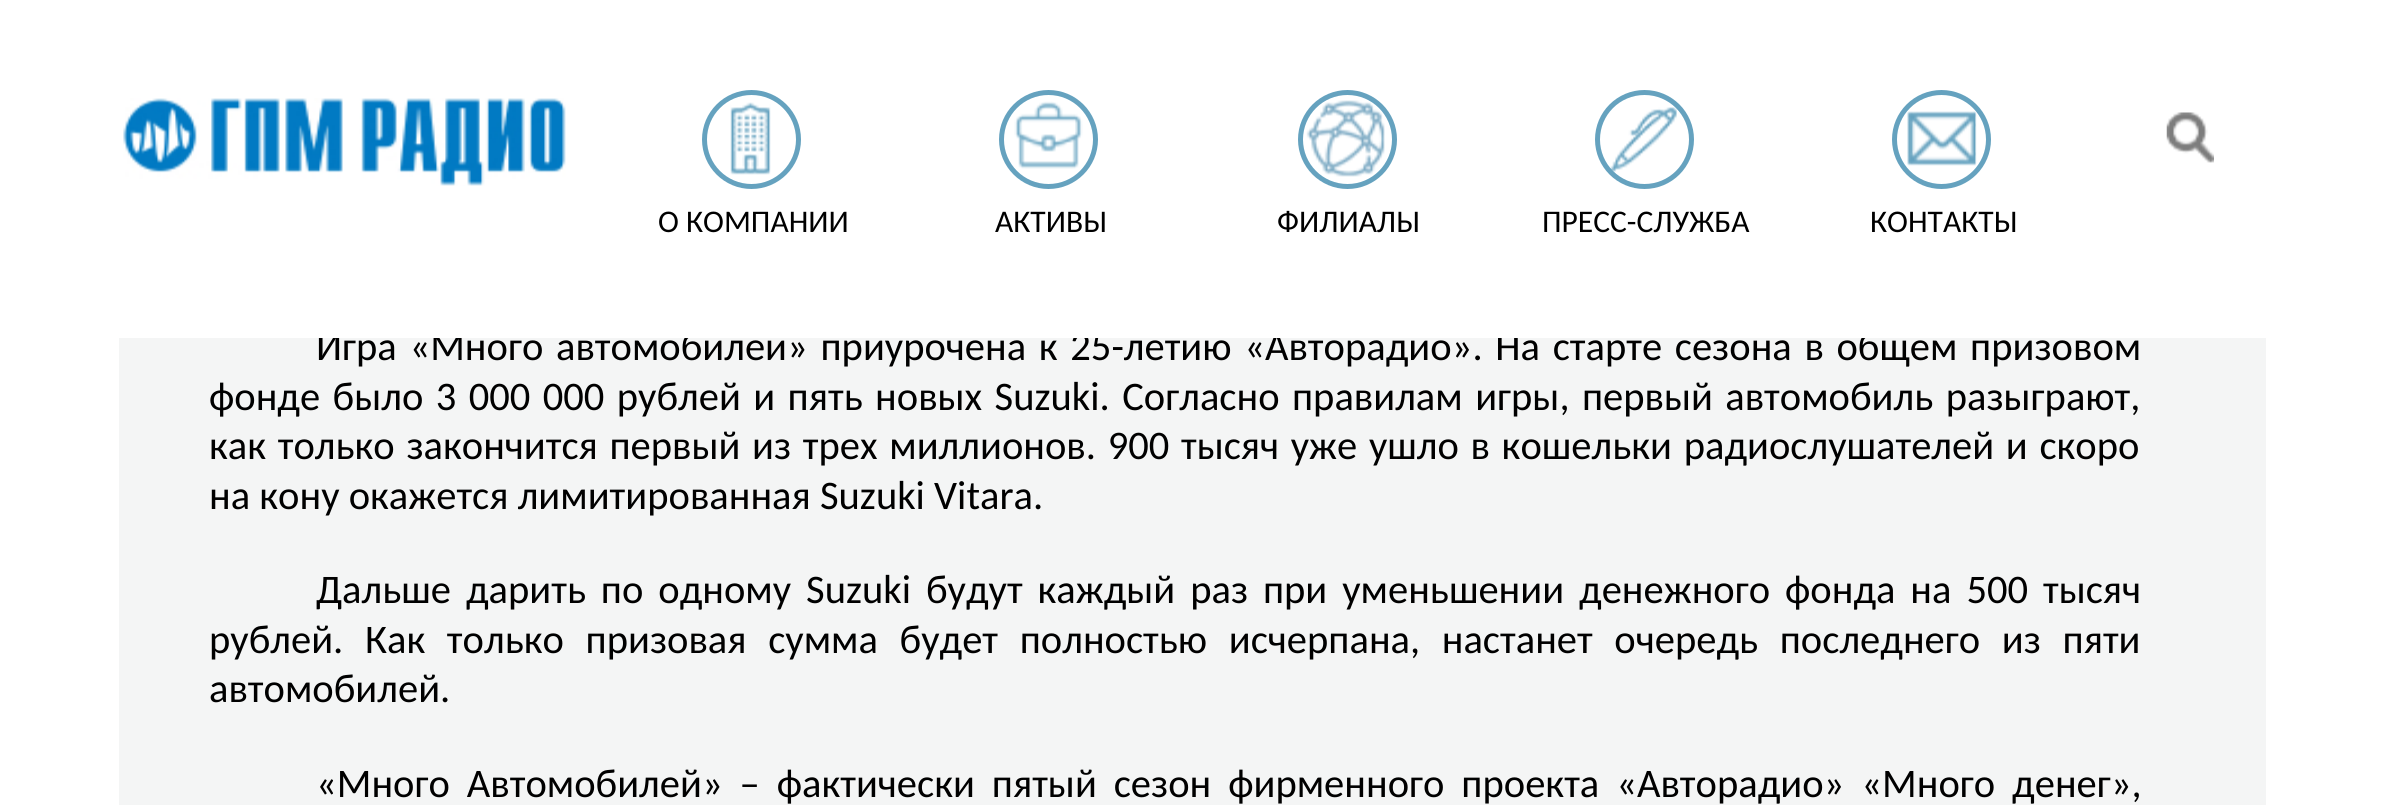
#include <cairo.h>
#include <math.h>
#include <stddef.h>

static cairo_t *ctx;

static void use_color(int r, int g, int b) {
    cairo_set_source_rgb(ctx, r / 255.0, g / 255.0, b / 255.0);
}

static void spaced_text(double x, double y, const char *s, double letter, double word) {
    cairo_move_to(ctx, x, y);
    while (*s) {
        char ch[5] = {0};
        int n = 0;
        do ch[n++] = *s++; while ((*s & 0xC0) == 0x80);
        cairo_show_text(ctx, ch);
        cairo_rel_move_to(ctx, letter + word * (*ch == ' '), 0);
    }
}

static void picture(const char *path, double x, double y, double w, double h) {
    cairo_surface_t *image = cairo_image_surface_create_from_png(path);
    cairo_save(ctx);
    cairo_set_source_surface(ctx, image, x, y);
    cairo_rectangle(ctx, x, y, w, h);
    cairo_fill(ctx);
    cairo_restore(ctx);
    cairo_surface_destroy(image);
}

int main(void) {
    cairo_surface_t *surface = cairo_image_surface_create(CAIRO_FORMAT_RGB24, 2383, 805);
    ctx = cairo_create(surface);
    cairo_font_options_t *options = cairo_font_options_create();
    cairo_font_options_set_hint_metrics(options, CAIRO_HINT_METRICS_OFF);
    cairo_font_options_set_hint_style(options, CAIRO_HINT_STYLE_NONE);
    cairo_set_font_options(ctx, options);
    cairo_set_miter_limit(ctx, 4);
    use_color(255, 255, 255);
    cairo_paint(ctx);
    use_color(244, 245, 245);
    cairo_rectangle(ctx, 119, 338, 2147, 467);
    cairo_fill(ctx);
    cairo_select_font_face(ctx, "Carlito", CAIRO_FONT_SLANT_NORMAL, CAIRO_FONT_WEIGHT_NORMAL);
    cairo_set_font_size(ctx, 40.55);
    use_color(0, 0, 0);
    spaced_text(316, 360, "Игра «Много автомобилей» приурочена к 25-летию «Авторадио». На старте сезона в общем призовом", 0, 3.5);
    use_color(255, 255, 255);
    cairo_rectangle(ctx, 318, 332, 1559, 6);
    cairo_fill(ctx);
    picture("img1.png", 123, 98, 443, 88);
    picture("img2.png", 2166, 112, 48, 51);
    picture("img3.png", 730, 102, 41, 73);
    cairo_arc(ctx, 751.5, 139.5, 47, 0, 2 * M_PI);
    use_color(101, 162, 191);
    cairo_set_line_width(ctx, 5);
    cairo_stroke(ctx);
    cairo_set_font_size(ctx, 31.5);
    use_color(0, 0, 0);
    cairo_move_to(ctx, 658, 232);
    cairo_show_text(ctx, "О КОМПАНИИ");
    picture("img4.png", 1014, 101, 69, 68);
    cairo_arc(ctx, 1048.5, 139.5, 47, 0, 2 * M_PI);
    use_color(101, 162, 191);
    cairo_stroke(ctx);
    use_color(0, 0, 0);
    cairo_move_to(ctx, 995, 232);
    cairo_show_text(ctx, "АКТИВЫ");
    picture("img5.png", 1306, 100, 79, 77);
    cairo_arc(ctx, 1347.5, 139.5, 47, 0, 2 * M_PI);
    use_color(101, 162, 191);
    cairo_stroke(ctx);
    use_color(0, 0, 0);
    cairo_move_to(ctx, 1277, 232);
    cairo_show_text(ctx, "ФИЛИАЛЫ");
    picture("img6.png", 1610, 107, 67, 65);
    cairo_arc(ctx, 1644.5, 139.5, 47, 0, 2 * M_PI);
    use_color(101, 162, 191);
    cairo_stroke(ctx);
    use_color(0, 0, 0);
    cairo_move_to(ctx, 1542, 232);
    cairo_show_text(ctx, "ПРЕСС-СЛУЖБА");
    picture("img7.png", 1907, 111, 70, 55);
    cairo_arc(ctx, 1941.5, 139.5, 47, 0, 2 * M_PI);
    use_color(101, 162, 191);
    cairo_stroke(ctx);
    use_color(0, 0, 0);
    cairo_move_to(ctx, 1870, 232);
    cairo_show_text(ctx, "КОНТАКТЫ");
    cairo_set_font_size(ctx, 40.55);
    spaced_text(209, 410, "фонде было 3 000 000 рублей и пять новых Suzuki. Согласно правилам игры, первый автомобиль разыграют,", 0, 3.25);
    spaced_text(209, 459, "как только закончится первый из трех миллионов. 900 тысяч уже ушло в кошельки радиослушателей и скоро", 0, 2.5);
    cairo_move_to(ctx, 209, 509);
    cairo_show_text(ctx, "на кону окажется лимитированная Suzuki Vitara.");
    spaced_text(316, 603, "Дальше дарить по одному Suzuki будут каждый раз при уменьшении денежного фонда на 500 тысяч", 0, 5.75);
    spaced_text(209, 653, "рублей. Как только призовая сумма будет полностью исчерпана, настанет очередь последнего из пяти", 0, 12.5);
    cairo_move_to(ctx, 209, 702);
    cairo_show_text(ctx, "автомобилей.");
    spaced_text(316, 797, "«Много Автомобилей» – фактически пятый сезон фирменного проекта «Авторадио» «Много денег»,", 0, 7.75);
    cairo_surface_write_to_png(surface, "result.png");
    cairo_font_options_destroy(options);
    cairo_destroy(ctx);
    cairo_surface_destroy(surface);
    return 0;
}
